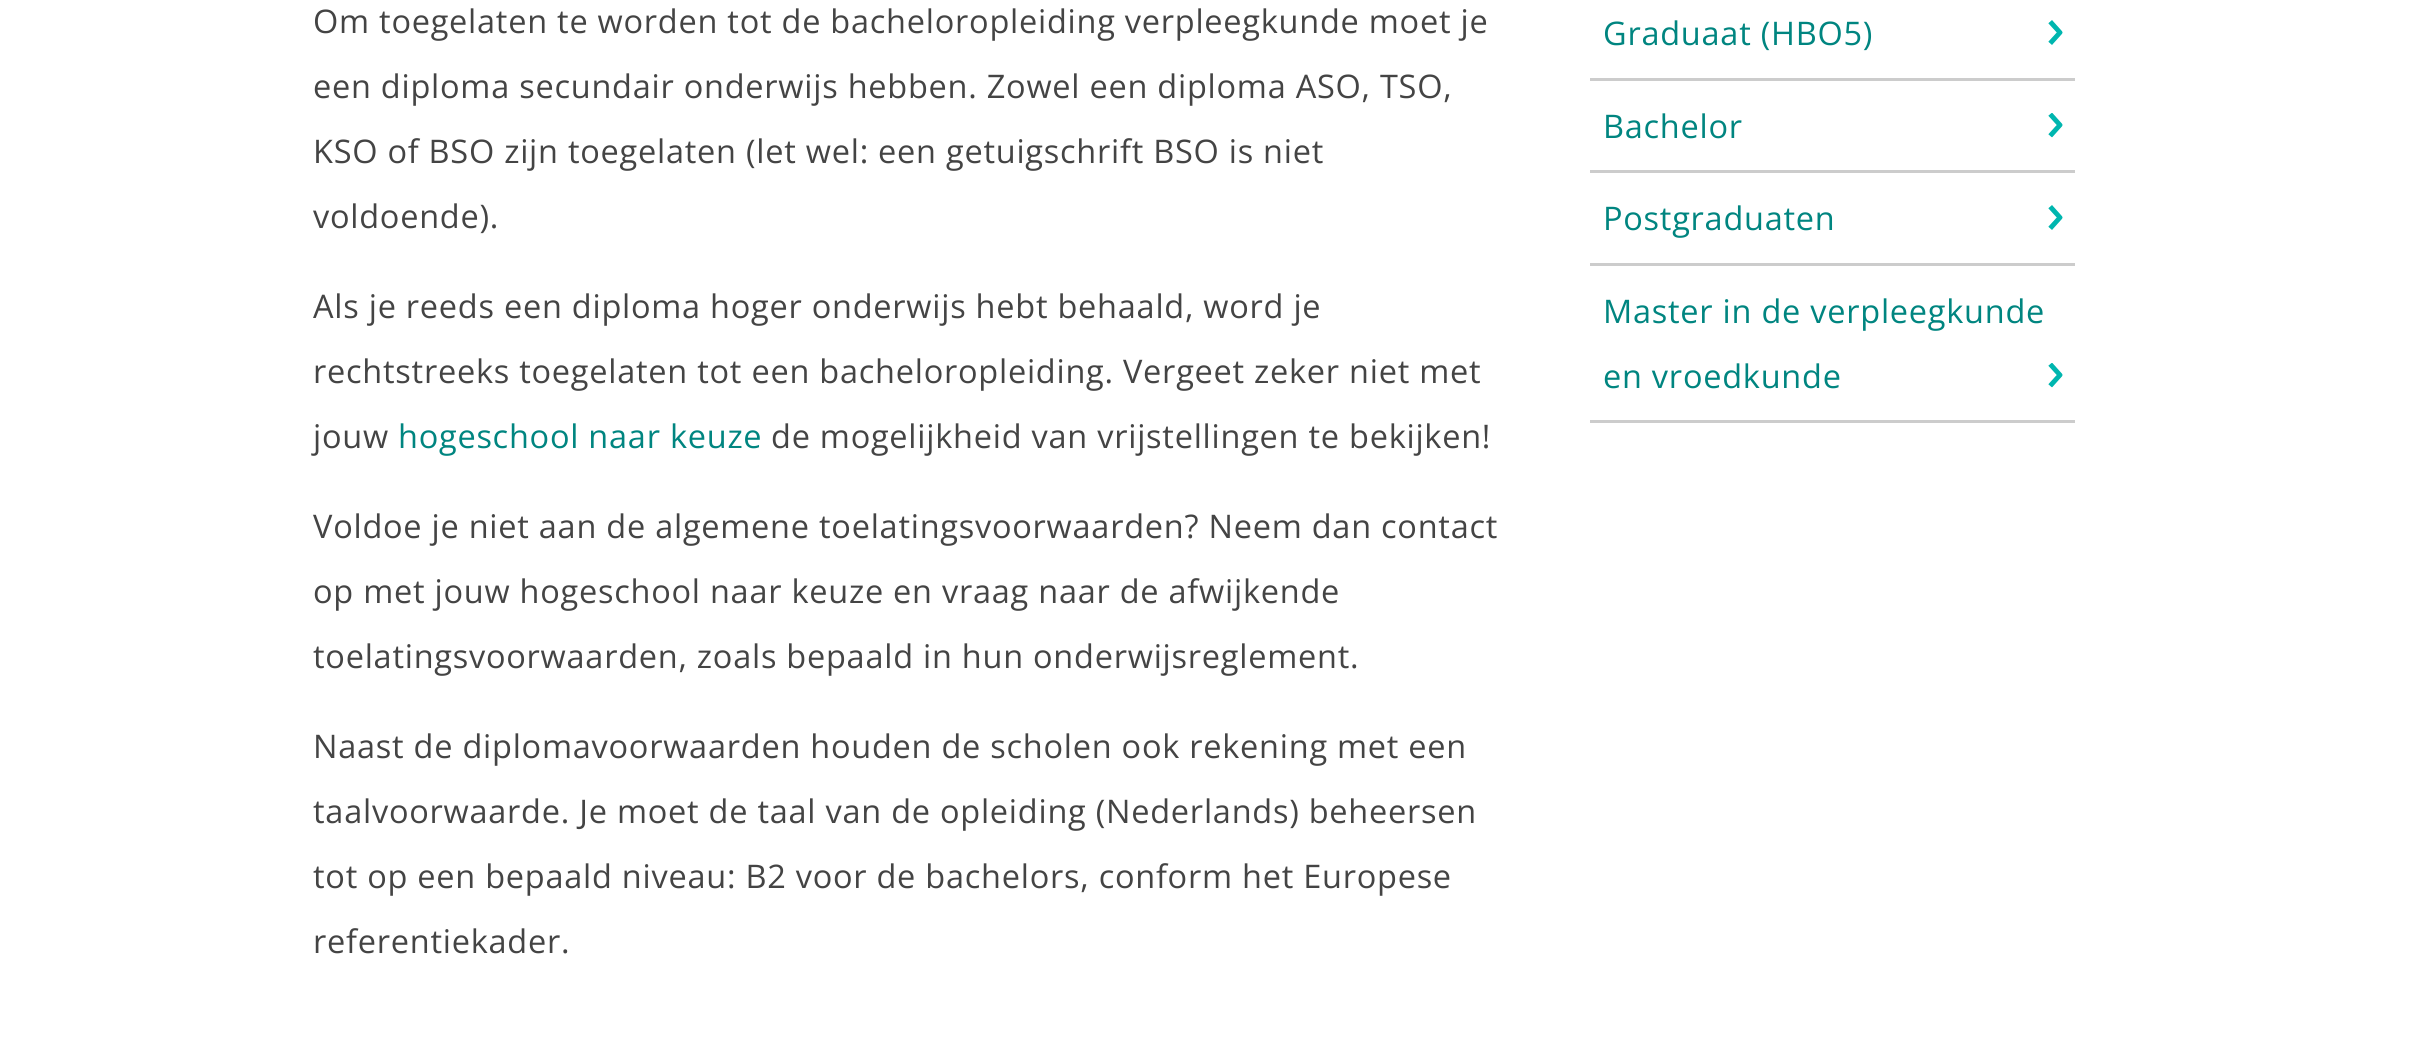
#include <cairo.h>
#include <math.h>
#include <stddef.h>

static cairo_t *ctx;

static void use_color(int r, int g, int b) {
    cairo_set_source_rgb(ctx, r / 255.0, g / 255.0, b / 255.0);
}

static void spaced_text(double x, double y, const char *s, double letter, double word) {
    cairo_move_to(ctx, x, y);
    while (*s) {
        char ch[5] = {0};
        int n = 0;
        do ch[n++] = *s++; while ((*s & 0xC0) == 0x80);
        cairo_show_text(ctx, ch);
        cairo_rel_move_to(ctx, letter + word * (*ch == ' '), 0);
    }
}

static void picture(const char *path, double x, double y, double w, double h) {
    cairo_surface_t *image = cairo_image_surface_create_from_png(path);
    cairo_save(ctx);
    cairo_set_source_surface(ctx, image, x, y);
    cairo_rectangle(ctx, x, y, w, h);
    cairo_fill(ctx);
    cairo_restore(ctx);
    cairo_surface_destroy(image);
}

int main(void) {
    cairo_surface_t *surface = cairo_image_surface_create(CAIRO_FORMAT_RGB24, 2423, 1037);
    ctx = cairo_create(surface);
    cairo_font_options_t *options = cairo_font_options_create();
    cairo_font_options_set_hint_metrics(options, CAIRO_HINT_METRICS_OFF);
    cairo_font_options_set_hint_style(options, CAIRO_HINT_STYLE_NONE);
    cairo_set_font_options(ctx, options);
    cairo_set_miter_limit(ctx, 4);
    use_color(255, 255, 255);
    cairo_paint(ctx);
    cairo_select_font_face(ctx, "Open Sans", CAIRO_FONT_SLANT_NORMAL, CAIRO_FONT_WEIGHT_NORMAL);
    cairo_set_font_size(ctx, 32.5);
    use_color(68, 68, 68);
    spaced_text(313, 33, "Om toegelaten te worden tot de bacheloropleiding verpleegkunde moet je", 0.75, 0);
    spaced_text(313, 98, "een diploma secundair onderwijs hebben. Zowel een diploma ASO, TSO,", 0.75, 0);
    spaced_text(313, 163, "KSO of BSO zijn toegelaten (let wel: een getuigschrift BSO is niet", 0.75, 0);
    spaced_text(313, 228, "voldoende).", 0.75, 0);
    spaced_text(313, 318, "Als je reeds een diploma hoger onderwijs hebt behaald, word je", 0.75, 0);
    spaced_text(313, 383, "rechtstreeks toegelaten tot een bacheloropleiding. Vergeet zeker niet met", 0.75, 0);
    spaced_text(313, 448, "jouw", 0.75, 0);
    use_color(0, 133, 128);
    spaced_text(398, 448, "hogeschool naar keuze", 0.75, 0);
    use_color(68, 68, 68);
    spaced_text(771, 448, "de mogelijkheid van vrijstellingen te bekijken!", 0.75, 0);
    spaced_text(313, 538, "Voldoe je niet aan de algemene toelatingsvoorwaarden? Neem dan contact", 0.75, 0);
    spaced_text(313, 603, "op met jouw hogeschool naar keuze en vraag naar de afwijkende", 0.75, 0);
    spaced_text(313, 668, "toelatingsvoorwaarden, zoals bepaald in hun onderwijsreglement.", 0.75, 0);
    spaced_text(313, 758, "Naast de diplomavoorwaarden houden de scholen ook rekening met een", 0.75, 0);
    spaced_text(313, 823, "taalvoorwaarde. Je moet de taal van de opleiding (Nederlands) beheersen", 0.75, 0);
    spaced_text(313, 888, "tot op een bepaald niveau: B2 voor de bachelors, conform het Europese", 0.75, 0);
    spaced_text(313, 953, "referentiekader.", 0.75, 0);
    use_color(204, 204, 204);
    cairo_rectangle(ctx, 1590, 78, 485, 3);
    cairo_fill(ctx);
    use_color(0, 133, 128);
    spaced_text(1603, 45, "Graduaat (HBO5)", 0.75, 0);
    picture("img1.png", 2048, 20, 15, 25);
    use_color(204, 204, 204);
    cairo_rectangle(ctx, 1590, 170, 485, 3);
    cairo_fill(ctx);
    use_color(0, 133, 128);
    spaced_text(1603, 138, "Bachelor", 0.75, 0);
    picture("img2.png", 2048, 113, 15, 25);
    use_color(204, 204, 204);
    cairo_rectangle(ctx, 1590, 263, 485, 3);
    cairo_fill(ctx);
    use_color(0, 133, 128);
    spaced_text(1603, 230, "Postgraduaten", 0.75, 0);
    picture("img1.png", 2048, 205, 15, 25);
    use_color(204, 204, 204);
    cairo_rectangle(ctx, 1590, 420, 485, 3);
    cairo_fill(ctx);
    use_color(0, 133, 128);
    spaced_text(1603, 323, "Master in de verpleegkunde", 0.75, 0);
    spaced_text(1603, 388, "en vroedkunde", 0.75, 0);
    picture("img2.png", 2048, 363, 15, 25);
    cairo_surface_write_to_png(surface, "result.png");
    cairo_font_options_destroy(options);
    cairo_destroy(ctx);
    cairo_surface_destroy(surface);
    return 0;
}
